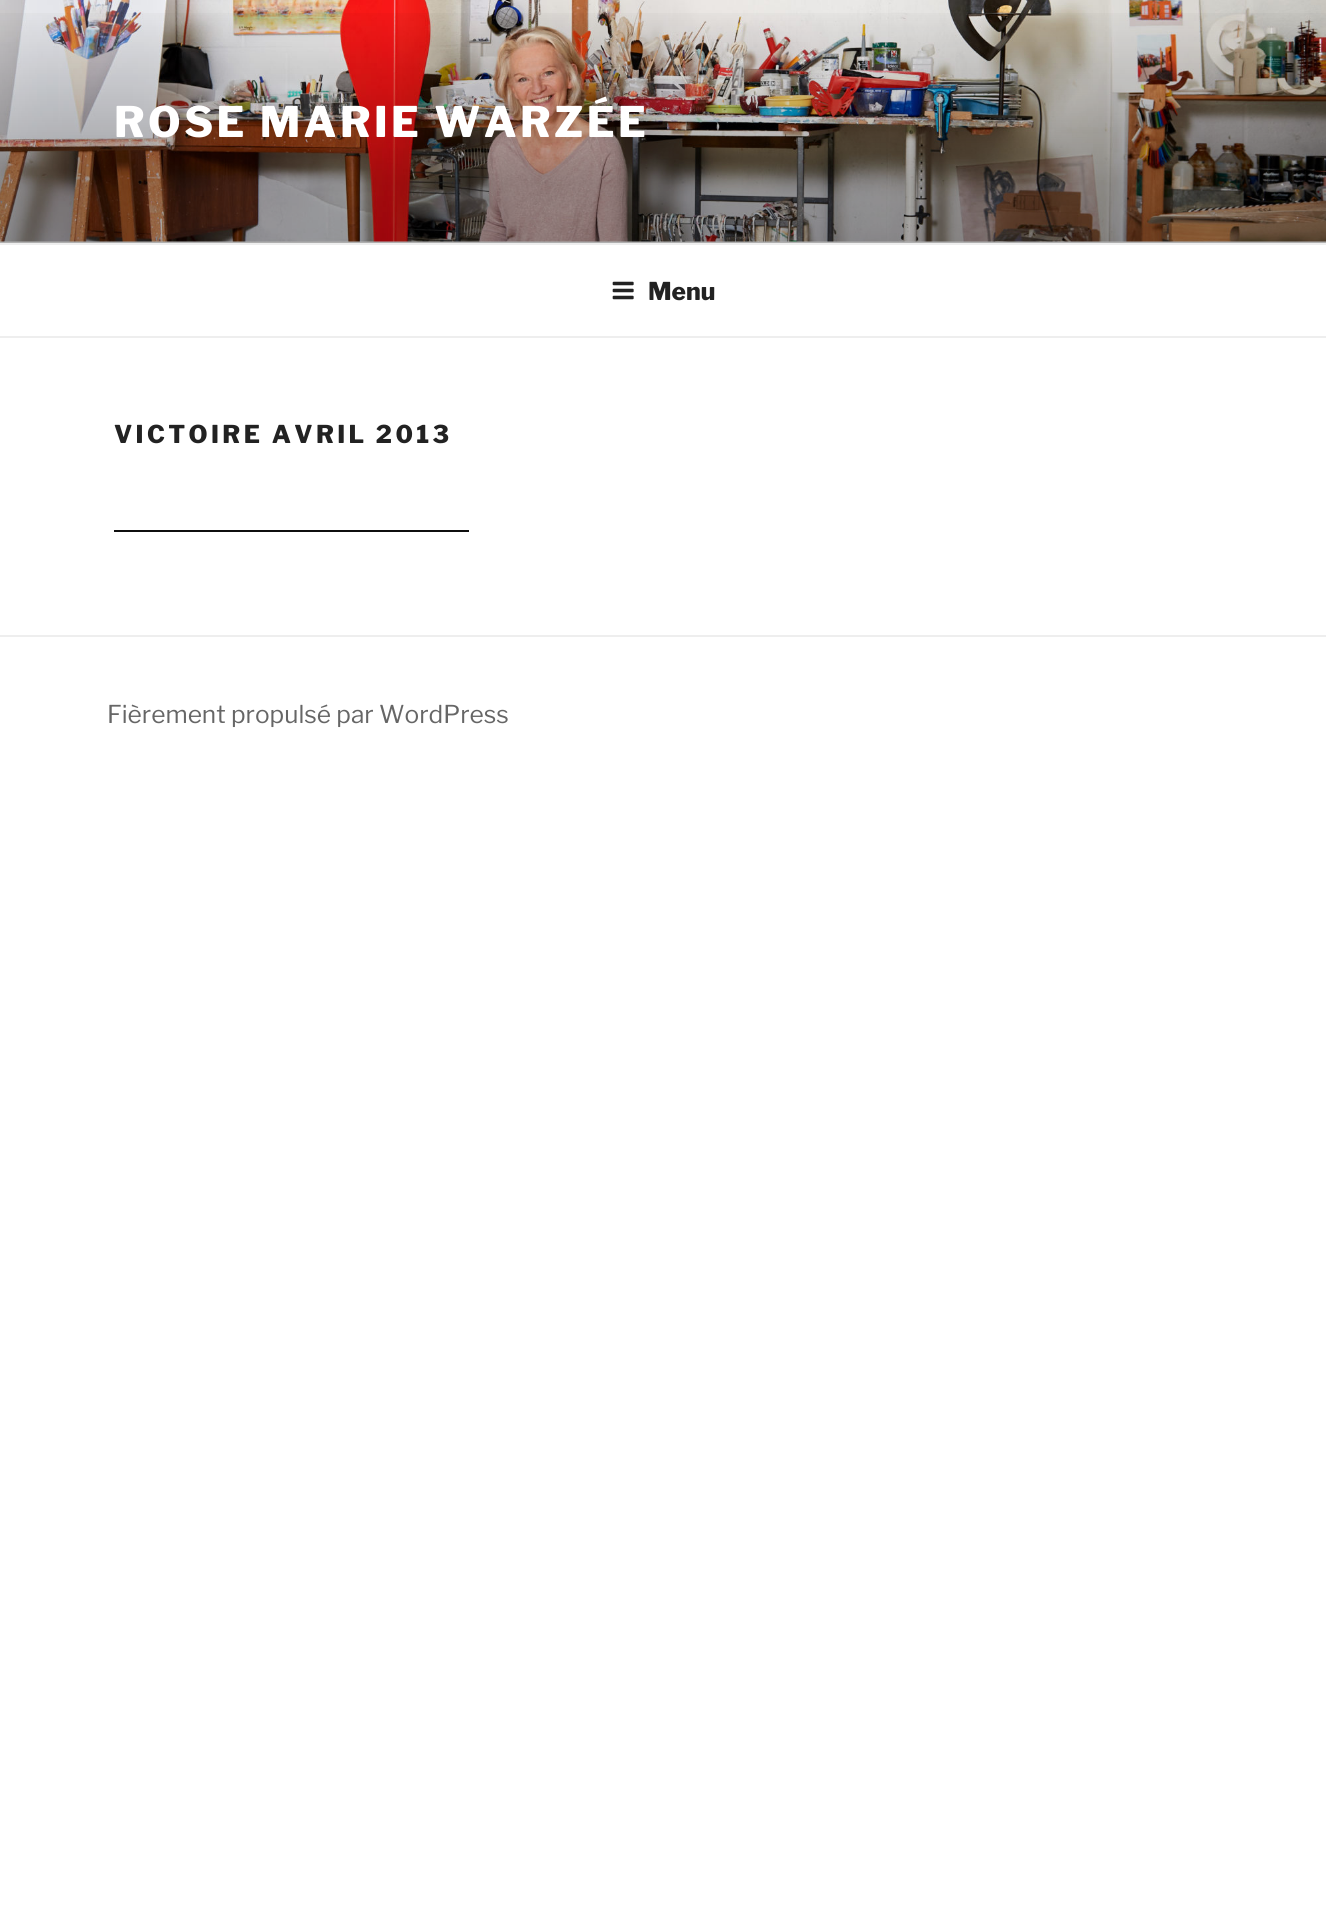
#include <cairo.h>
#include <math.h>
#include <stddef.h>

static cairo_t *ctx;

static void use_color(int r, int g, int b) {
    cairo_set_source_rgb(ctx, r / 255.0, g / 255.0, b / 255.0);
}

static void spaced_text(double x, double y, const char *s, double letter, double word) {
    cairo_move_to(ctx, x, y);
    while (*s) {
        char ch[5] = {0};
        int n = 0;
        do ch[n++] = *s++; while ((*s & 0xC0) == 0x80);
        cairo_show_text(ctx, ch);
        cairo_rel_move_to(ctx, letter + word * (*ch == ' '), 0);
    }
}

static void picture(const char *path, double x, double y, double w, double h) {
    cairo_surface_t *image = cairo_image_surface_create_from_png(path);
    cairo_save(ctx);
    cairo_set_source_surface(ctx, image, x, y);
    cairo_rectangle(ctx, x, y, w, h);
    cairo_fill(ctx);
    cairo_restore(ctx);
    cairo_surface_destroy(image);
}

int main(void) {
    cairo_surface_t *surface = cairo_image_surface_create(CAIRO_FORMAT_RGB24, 1326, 1917);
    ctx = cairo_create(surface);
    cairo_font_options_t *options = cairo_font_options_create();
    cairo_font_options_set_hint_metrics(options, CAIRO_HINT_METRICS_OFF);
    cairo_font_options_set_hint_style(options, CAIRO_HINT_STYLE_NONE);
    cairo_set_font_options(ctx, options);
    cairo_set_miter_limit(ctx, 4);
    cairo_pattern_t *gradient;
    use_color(255, 255, 255);
    cairo_paint(ctx);
    use_color(250, 250, 250);
    cairo_rectangle(ctx, 0, 241, 1326, 2);
    cairo_fill(ctx);
    picture("img1.png", 0, 0, 1326, 242);
    gradient = cairo_pattern_create_linear(663, 0, 663, 243);
    cairo_pattern_add_color_stop_rgba(gradient, 0, 0, 0, 0, 0);
    cairo_pattern_add_color_stop_rgba(gradient, 0.75, 0, 0, 0, 0.3);
    cairo_pattern_add_color_stop_rgba(gradient, 1, 0, 0, 0, 0.3);
    cairo_set_source(ctx, gradient);
    cairo_pattern_destroy(gradient);
    cairo_rectangle(ctx, 0, 13, 1326, 230);
    cairo_fill(ctx);
    cairo_select_font_face(ctx, "Libre Franklin Thin", CAIRO_FONT_SLANT_NORMAL, CAIRO_FONT_WEIGHT_NORMAL);
    cairo_set_font_size(ctx, 42);
    use_color(255, 255, 255);
    spaced_text(114, 137, "ROSE MARIE WARZÉE", 3.4, 0);
    use_color(238, 238, 238);
    cairo_rectangle(ctx, 0, 243, 1326, 2);
    cairo_fill(ctx);
    cairo_rectangle(ctx, 0, 336, 1326, 2);
    cairo_fill(ctx);
    picture("img2.png", 612, 281, 22, 19);
    cairo_set_font_size(ctx, 24.5);
    use_color(34, 34, 34);
    cairo_move_to(ctx, 648, 300);
    cairo_show_text(ctx, "Menu");
    spaced_text(114, 443, "VICTOIRE AVRIL 2013", 3.4, 0);
    use_color(15, 15, 15);
    cairo_rectangle(ctx, 114, 530, 355, 2);
    cairo_fill(ctx);
    use_color(238, 238, 238);
    cairo_rectangle(ctx, 0, 635, 1326, 2);
    cairo_fill(ctx);
    cairo_select_font_face(ctx, "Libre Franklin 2 Thin", CAIRO_FONT_SLANT_NORMAL, CAIRO_FONT_WEIGHT_NORMAL);
    use_color(102, 102, 102);
    cairo_move_to(ctx, 107, 723);
    cairo_show_text(ctx, "Fièrement propulsé par WordPress");
    cairo_surface_write_to_png(surface, "result.png");
    cairo_font_options_destroy(options);
    cairo_destroy(ctx);
    cairo_surface_destroy(surface);
    return 0;
}
